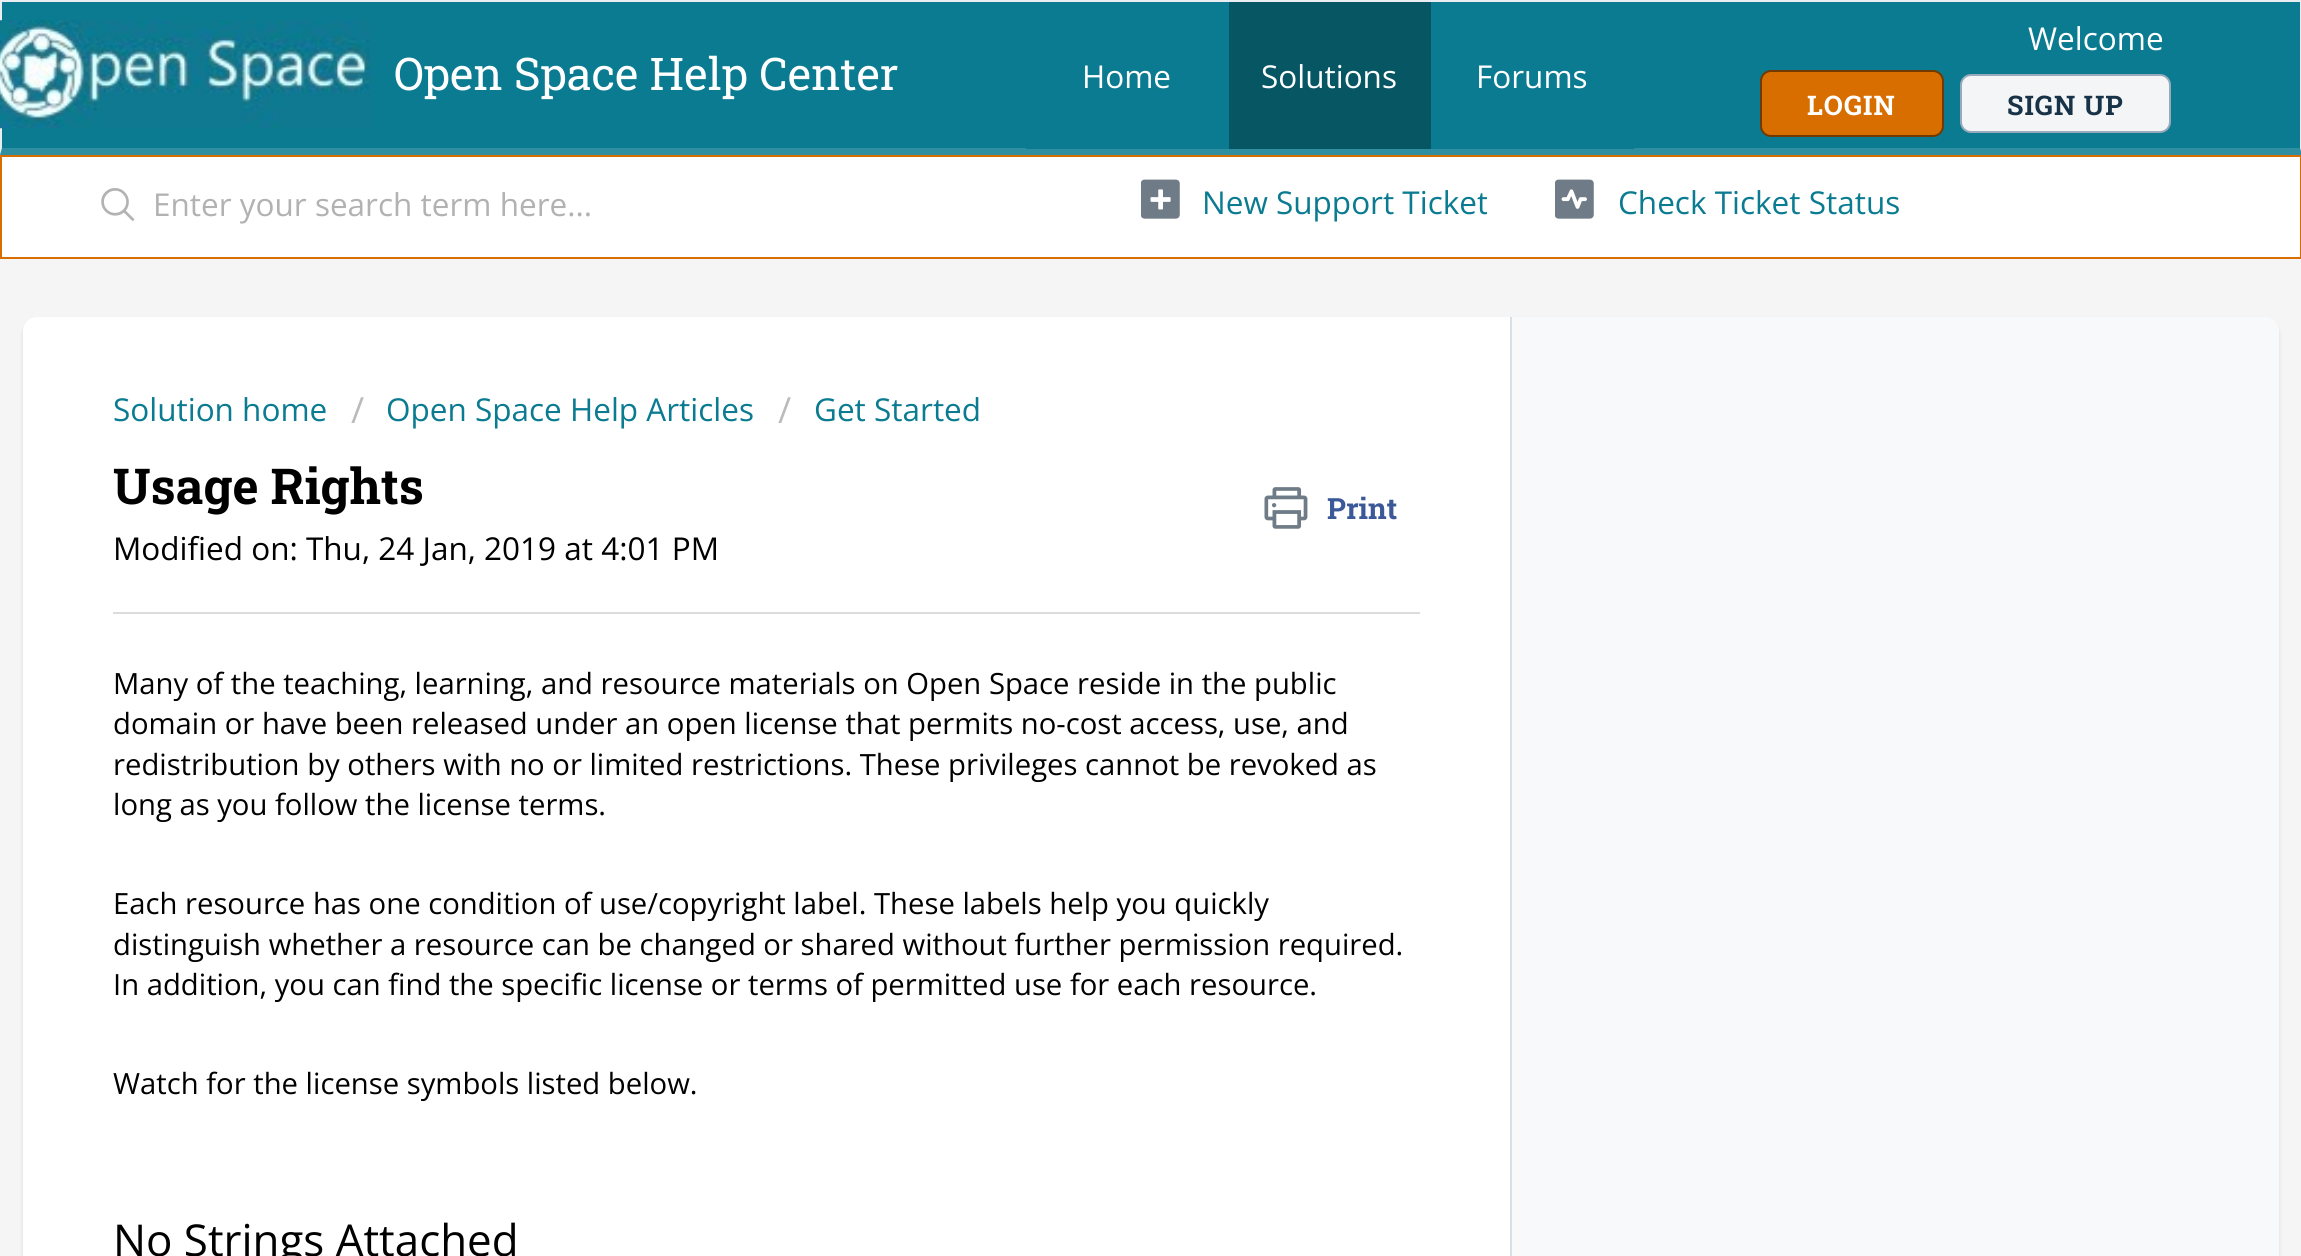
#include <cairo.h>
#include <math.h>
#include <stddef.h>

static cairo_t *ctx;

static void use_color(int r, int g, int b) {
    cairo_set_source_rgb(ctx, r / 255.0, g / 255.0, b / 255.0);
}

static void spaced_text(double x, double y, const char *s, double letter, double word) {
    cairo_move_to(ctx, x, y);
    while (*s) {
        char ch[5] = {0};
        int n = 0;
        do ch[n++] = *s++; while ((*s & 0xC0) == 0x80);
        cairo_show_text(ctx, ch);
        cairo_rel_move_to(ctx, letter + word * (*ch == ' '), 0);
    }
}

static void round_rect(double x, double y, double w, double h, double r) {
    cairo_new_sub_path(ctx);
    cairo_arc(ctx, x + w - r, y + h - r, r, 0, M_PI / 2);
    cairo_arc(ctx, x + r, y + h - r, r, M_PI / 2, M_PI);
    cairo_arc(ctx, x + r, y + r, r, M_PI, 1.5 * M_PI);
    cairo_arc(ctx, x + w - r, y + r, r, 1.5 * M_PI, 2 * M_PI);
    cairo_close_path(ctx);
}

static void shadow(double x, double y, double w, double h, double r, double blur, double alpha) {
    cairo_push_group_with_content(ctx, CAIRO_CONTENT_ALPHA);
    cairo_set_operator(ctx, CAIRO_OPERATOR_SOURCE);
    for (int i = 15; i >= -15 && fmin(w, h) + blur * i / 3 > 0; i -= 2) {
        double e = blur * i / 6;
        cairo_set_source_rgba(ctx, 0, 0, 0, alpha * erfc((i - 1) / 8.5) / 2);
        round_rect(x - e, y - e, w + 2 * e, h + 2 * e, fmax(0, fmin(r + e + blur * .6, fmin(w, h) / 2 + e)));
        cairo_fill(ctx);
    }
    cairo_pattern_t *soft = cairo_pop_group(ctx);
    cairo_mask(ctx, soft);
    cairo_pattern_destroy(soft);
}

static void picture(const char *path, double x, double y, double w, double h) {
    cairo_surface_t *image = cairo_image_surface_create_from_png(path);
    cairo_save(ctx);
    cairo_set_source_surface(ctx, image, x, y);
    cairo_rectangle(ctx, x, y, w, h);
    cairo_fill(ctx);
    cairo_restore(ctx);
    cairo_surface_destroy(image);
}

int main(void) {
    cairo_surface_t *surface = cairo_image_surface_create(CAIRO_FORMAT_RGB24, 2301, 1256);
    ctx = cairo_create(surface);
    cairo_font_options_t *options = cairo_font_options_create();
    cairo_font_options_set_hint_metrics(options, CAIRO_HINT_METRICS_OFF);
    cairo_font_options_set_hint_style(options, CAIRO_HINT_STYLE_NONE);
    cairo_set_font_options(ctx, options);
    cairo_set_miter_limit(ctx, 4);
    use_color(245, 245, 245);
    cairo_paint(ctx);
    use_color(10, 123, 145);
    cairo_rectangle(ctx, 0, 2, 2301, 153);
    cairo_fill(ctx);
    use_color(235, 238, 240);
    cairo_rectangle(ctx, 0, 0, 2301, 2);
    cairo_fill(ctx);
    cairo_new_path(ctx);
    cairo_move_to(ctx, 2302, 0);
    cairo_line_to(ctx, 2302, 155);
    cairo_line_to(ctx, 2300, 148);
    cairo_line_to(ctx, 2300, 2);
    cairo_close_path(ctx);
    cairo_fill(ctx);
    cairo_set_source_rgba(ctx, 1, 1, 1, 0.15);
    cairo_new_path(ctx);
    cairo_move_to(ctx, 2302, 155);
    cairo_line_to(ctx, 0, 155);
    cairo_line_to(ctx, 2, 148);
    cairo_line_to(ctx, 2300, 148);
    cairo_close_path(ctx);
    cairo_fill(ctx);
    use_color(235, 238, 240);
    cairo_new_path(ctx);
    cairo_move_to(ctx, 0, 155);
    cairo_line_to(ctx, 0, 0);
    cairo_line_to(ctx, 2, 2);
    cairo_line_to(ctx, 2, 148);
    cairo_close_path(ctx);
    cairo_fill(ctx);
    picture("img1.png", 0, 20, 371, 109);
    cairo_select_font_face(ctx, "Roboto Slab", CAIRO_FONT_SLANT_NORMAL, CAIRO_FONT_WEIGHT_NORMAL);
    cairo_set_font_size(ctx, 45);
    use_color(255, 255, 255);
    cairo_move_to(ctx, 394, 90);
    cairo_show_text(ctx, "Open Space Help Center");
    use_color(10, 123, 145);
    cairo_rectangle(ctx, 1026, 148, 608, 1);
    cairo_fill(ctx);
    cairo_select_font_face(ctx, "Open Sans", CAIRO_FONT_SLANT_NORMAL, CAIRO_FONT_WEIGHT_NORMAL);
    cairo_set_font_size(ctx, 31.5);
    use_color(255, 255, 255);
    cairo_move_to(ctx, 1082, 88);
    cairo_show_text(ctx, "Home");
    use_color(7, 86, 99);
    cairo_rectangle(ctx, 1229, 2, 202, 147);
    cairo_fill(ctx);
    use_color(255, 255, 255);
    cairo_move_to(ctx, 1261, 88);
    cairo_show_text(ctx, "Solutions");
    cairo_move_to(ctx, 1476, 88);
    cairo_show_text(ctx, "Forums");
    cairo_move_to(ctx, 2028, 50);
    cairo_show_text(ctx, "Welcome");
    use_color(216, 110, 0);
    round_rect(1761, 71, 182, 65, 10);
    cairo_fill_preserve(ctx);
    use_color(114, 58, 0);
    cairo_stroke(ctx);
    cairo_select_font_face(ctx, "Roboto Slab", CAIRO_FONT_SLANT_NORMAL, CAIRO_FONT_WEIGHT_BOLD);
    cairo_set_font_size(ctx, 27);
    use_color(255, 255, 255);
    spaced_text(1807, 115, "LOGIN", 1, 0);
    use_color(243, 245, 247);
    round_rect(1961, 75, 209, 57, 10);
    cairo_fill_preserve(ctx);
    use_color(151, 169, 186);
    cairo_stroke(ctx);
    use_color(24, 50, 71);
    spaced_text(2007, 115, "SIGN UP", 1, 0);
    use_color(255, 255, 255);
    cairo_rectangle(ctx, 1, 156, 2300, 102);
    cairo_fill_preserve(ctx);
    use_color(216, 110, 0);
    cairo_stroke(ctx);
    picture("img2.png", 101, 188, 34, 33);
    cairo_select_font_face(ctx, "Open Sans", CAIRO_FONT_SLANT_NORMAL, CAIRO_FONT_WEIGHT_NORMAL);
    cairo_set_font_size(ctx, 31.5);
    use_color(178, 178, 178);
    cairo_move_to(ctx, 153, 216);
    cairo_show_text(ctx, "Enter your search term here...");
    picture("img3.png", 1141, 179, 39, 40);
    cairo_save(ctx);
    cairo_rectangle(ctx, 1141, 162, 346, 79);
    cairo_clip(ctx);
    use_color(10, 123, 145);
    cairo_move_to(ctx, 1202, 214);
    cairo_show_text(ctx, "New Support Ticket");
    cairo_restore(ctx);
    picture("img4.png", 1555, 179, 39, 40);
    use_color(10, 123, 145);
    cairo_move_to(ctx, 1618, 214);
    cairo_show_text(ctx, "Check Ticket Status");
    use_color(63, 63, 68);
    shadow(23, 320, 2256, 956, 14, 2, 0.15);
    use_color(248, 249, 250);
    round_rect(23, 317, 2256, 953, 14);
    cairo_fill(ctx);
    cairo_new_path(ctx);
    cairo_move_to(ctx, 1512, 317);
    cairo_line_to(ctx, 2265, 317);
    cairo_curve_to(ctx, 2272.5, 317, 2279, 323.5, 2279, 331);
    cairo_line_to(ctx, 2279, 348);
    cairo_curve_to(ctx, 2279, 355.5, 2272.5, 362, 2265, 362);
    cairo_line_to(ctx, 1512, 362);
    cairo_close_path(ctx);
    cairo_fill(ctx);
    use_color(255, 255, 255);
    cairo_new_path(ctx);
    cairo_move_to(ctx, 37, 317);
    cairo_line_to(ctx, 1512, 317);
    cairo_line_to(ctx, 1512, 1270);
    cairo_line_to(ctx, 37, 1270);
    cairo_curve_to(ctx, 29.5, 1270, 23, 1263.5, 23, 1256);
    cairo_line_to(ctx, 23, 331);
    cairo_curve_to(ctx, 23, 323.5, 29.5, 317, 37, 317);
    cairo_close_path(ctx);
    cairo_fill(ctx);
    use_color(218, 223, 227);
    cairo_rectangle(ctx, 1510, 317, 2, 939);
    cairo_fill(ctx);
    use_color(10, 123, 145);
    cairo_move_to(ctx, 113, 421);
    cairo_show_text(ctx, "Solution home");
    cairo_set_font_size(ctx, 36);
    use_color(187, 187, 187);
    cairo_move_to(ctx, 351, 423);
    cairo_show_text(ctx, "/");
    cairo_set_font_size(ctx, 31.5);
    use_color(10, 123, 145);
    cairo_move_to(ctx, 386, 421);
    cairo_show_text(ctx, "Open Space Help Articles");
    cairo_set_font_size(ctx, 36);
    use_color(187, 187, 187);
    cairo_move_to(ctx, 778, 423);
    cairo_show_text(ctx, "/");
    cairo_set_font_size(ctx, 31.5);
    use_color(10, 123, 145);
    cairo_move_to(ctx, 814, 421);
    cairo_show_text(ctx, "Get Started");
    cairo_select_font_face(ctx, "Roboto Slab", CAIRO_FONT_SLANT_NORMAL, CAIRO_FONT_WEIGHT_BOLD);
    cairo_set_font_size(ctx, 49.5);
    use_color(0, 0, 0);
    cairo_move_to(ctx, 113, 504);
    cairo_show_text(ctx, "Usage Rights");
    picture("img5.png", 1264, 487, 44, 42);
    cairo_set_font_size(ctx, 29.25);
    use_color(59, 89, 152);
    cairo_move_to(ctx, 1327, 519);
    cairo_show_text(ctx, "Print");
    cairo_select_font_face(ctx, "Open Sans", CAIRO_FONT_SLANT_NORMAL, CAIRO_FONT_WEIGHT_NORMAL);
    cairo_set_font_size(ctx, 31.5);
    use_color(0, 0, 0);
    cairo_move_to(ctx, 113, 560);
    cairo_show_text(ctx, "Modified on: Thu, 24 Jan, 2019 at 4:01 PM");
    use_color(220, 220, 220);
    cairo_rectangle(ctx, 113, 612, 1307, 2);
    cairo_fill(ctx);
    cairo_set_font_size(ctx, 29.25);
    use_color(0, 0, 0);
    cairo_move_to(ctx, 113, 694);
    cairo_show_text(ctx, "Many of the teaching, learning, and resource materials on Open Space reside in the public");
    cairo_move_to(ctx, 113, 734);
    cairo_show_text(ctx, "domain or have been released under an open license that permits no-cost access, use, and");
    cairo_move_to(ctx, 113, 775);
    cairo_show_text(ctx, "redistribution by others with no or limited restrictions. These privileges cannot be revoked as");
    cairo_move_to(ctx, 113, 815);
    cairo_show_text(ctx, "long as you follow the license terms.");
    cairo_move_to(ctx, 113, 914);
    cairo_show_text(ctx, "Each resource has one condition of use/copyright label. These labels help you quickly");
    cairo_move_to(ctx, 113, 955);
    cairo_show_text(ctx, "distinguish whether a resource can be changed or shared without further permission required.");
    cairo_move_to(ctx, 113, 995);
    cairo_show_text(ctx, "In addition, you can find the specific license or terms of permitted use for each resource.");
    cairo_move_to(ctx, 113, 1094);
    cairo_show_text(ctx, "Watch for the license symbols listed below.");
    cairo_set_font_size(ctx, 43.9);
    cairo_move_to(ctx, 113, 1256);
    cairo_show_text(ctx, "No Strings Attached");
    cairo_surface_write_to_png(surface, "result.png");
    cairo_font_options_destroy(options);
    cairo_destroy(ctx);
    cairo_surface_destroy(surface);
    return 0;
}
